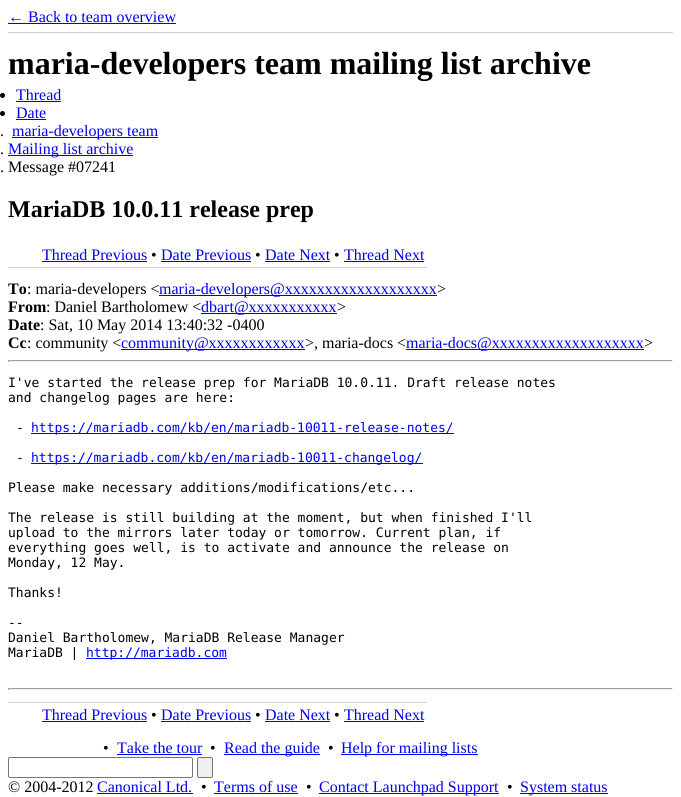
#include <cairo.h>
#include <math.h>
#include <stddef.h>

static cairo_t *ctx;

static void use_color(int r, int g, int b) {
    cairo_set_source_rgb(ctx, r / 255.0, g / 255.0, b / 255.0);
}

static void round_rect(double x, double y, double w, double h, double r) {
    cairo_new_sub_path(ctx);
    cairo_arc(ctx, x + w - r, y + h - r, r, 0, M_PI / 2);
    cairo_arc(ctx, x + r, y + h - r, r, M_PI / 2, M_PI);
    cairo_arc(ctx, x + r, y + r, r, M_PI, 1.5 * M_PI);
    cairo_arc(ctx, x + w - r, y + r, r, 1.5 * M_PI, 2 * M_PI);
    cairo_close_path(ctx);
}

int main(void) {
    cairo_surface_t *surface = cairo_image_surface_create(CAIRO_FORMAT_RGB24, 681, 797);
    ctx = cairo_create(surface);
    cairo_font_options_t *options = cairo_font_options_create();
    cairo_font_options_set_hint_metrics(options, CAIRO_HINT_METRICS_OFF);
    cairo_font_options_set_hint_style(options, CAIRO_HINT_STYLE_NONE);
    cairo_set_font_options(ctx, options);
    cairo_set_miter_limit(ctx, 4);
    use_color(255, 255, 255);
    cairo_paint(ctx);
    use_color(210, 210, 210);
    cairo_rectangle(ctx, 8, 32, 665, 1);
    cairo_fill(ctx);
    cairo_select_font_face(ctx, "Liberation Serif", CAIRO_FONT_SLANT_NORMAL, CAIRO_FONT_WEIGHT_NORMAL);
    cairo_set_font_size(ctx, 16);
    use_color(0, 0, 238);
    cairo_move_to(ctx, 8, 22);
    cairo_show_text(ctx, "← Back to team overview");
    cairo_rectangle(ctx, 8, 23, 168, 1);
    cairo_fill(ctx);
    cairo_select_font_face(ctx, "Liberation Serif", CAIRO_FONT_SLANT_NORMAL, CAIRO_FONT_WEIGHT_BOLD);
    cairo_set_font_size(ctx, 32);
    use_color(0, 0, 0);
    cairo_move_to(ctx, 8, 74);
    cairo_show_text(ctx, "maria-developers team mailing list archive");
    cairo_new_path(ctx);
    cairo_arc(ctx, 2.5, 95.5, 2.5, 0, 2 * M_PI);
    cairo_fill(ctx);
    cairo_select_font_face(ctx, "Liberation Serif", CAIRO_FONT_SLANT_NORMAL, CAIRO_FONT_WEIGHT_NORMAL);
    cairo_set_font_size(ctx, 16);
    use_color(0, 0, 238);
    cairo_move_to(ctx, 16, 100);
    cairo_show_text(ctx, "Thread");
    cairo_rectangle(ctx, 16, 101, 45, 1);
    cairo_fill(ctx);
    use_color(0, 0, 0);
    cairo_arc(ctx, 2.5, 113.5, 2.5, 0, 2 * M_PI);
    cairo_fill(ctx);
    use_color(0, 0, 238);
    cairo_move_to(ctx, 16, 118);
    cairo_show_text(ctx, "Date");
    cairo_rectangle(ctx, 16, 119, 30, 1);
    cairo_fill(ctx);
    use_color(0, 0, 0);
    cairo_move_to(ctx, 0, 136);
    cairo_show_text(ctx, ".");
    use_color(0, 0, 238);
    cairo_rectangle(ctx, 12, 137, 146, 1);
    cairo_fill(ctx);
    cairo_move_to(ctx, 12, 136);
    cairo_show_text(ctx, "maria-developers team");
    use_color(0, 0, 0);
    cairo_move_to(ctx, 0, 154);
    cairo_show_text(ctx, ".");
    use_color(0, 0, 238);
    cairo_rectangle(ctx, 8, 155, 125, 1);
    cairo_fill(ctx);
    cairo_move_to(ctx, 8, 154);
    cairo_show_text(ctx, "Mailing list archive");
    use_color(0, 0, 0);
    cairo_move_to(ctx, 0, 172);
    cairo_show_text(ctx, ". Message #07241");
    cairo_select_font_face(ctx, "Liberation Serif", CAIRO_FONT_SLANT_NORMAL, CAIRO_FONT_WEIGHT_BOLD);
    cairo_set_font_size(ctx, 24);
    cairo_move_to(ctx, 8, 217);
    cairo_show_text(ctx, "MariaDB 10.0.11 release prep");
    use_color(210, 210, 210);
    cairo_rectangle(ctx, 8, 267, 419, 1);
    cairo_fill(ctx);
    cairo_select_font_face(ctx, "Liberation Serif", CAIRO_FONT_SLANT_NORMAL, CAIRO_FONT_WEIGHT_NORMAL);
    cairo_set_font_size(ctx, 16);
    use_color(0, 0, 238);
    cairo_move_to(ctx, 42, 260);
    cairo_show_text(ctx, "Thread Previous");
    cairo_rectangle(ctx, 42, 261, 105, 1);
    cairo_fill(ctx);
    use_color(0, 0, 0);
    cairo_move_to(ctx, 151, 260);
    cairo_show_text(ctx, "•");
    use_color(0, 0, 238);
    cairo_move_to(ctx, 161, 260);
    cairo_show_text(ctx, "Date Previous");
    cairo_rectangle(ctx, 161, 261, 90, 1);
    cairo_fill(ctx);
    use_color(0, 0, 0);
    cairo_move_to(ctx, 255, 260);
    cairo_show_text(ctx, "•");
    use_color(0, 0, 238);
    cairo_move_to(ctx, 265, 260);
    cairo_show_text(ctx, "Date Next");
    cairo_rectangle(ctx, 265, 261, 65, 1);
    cairo_fill(ctx);
    use_color(0, 0, 0);
    cairo_move_to(ctx, 334, 260);
    cairo_show_text(ctx, "•");
    use_color(0, 0, 238);
    cairo_move_to(ctx, 344, 260);
    cairo_show_text(ctx, "Thread Next");
    cairo_rectangle(ctx, 344, 261, 80, 1);
    cairo_fill(ctx);
    cairo_select_font_face(ctx, "Liberation Serif", CAIRO_FONT_SLANT_NORMAL, CAIRO_FONT_WEIGHT_BOLD);
    use_color(0, 0, 0);
    cairo_move_to(ctx, 8, 294);
    cairo_show_text(ctx, "To");
    cairo_select_font_face(ctx, "Liberation Serif", CAIRO_FONT_SLANT_NORMAL, CAIRO_FONT_WEIGHT_NORMAL);
    cairo_move_to(ctx, 27, 294);
    cairo_show_text(ctx, ": maria-developers <");
    use_color(0, 0, 238);
    cairo_rectangle(ctx, 159, 295, 278, 1);
    cairo_fill(ctx);
    cairo_move_to(ctx, 159, 294);
    cairo_show_text(ctx, "maria-developers@xxxxxxxxxxxxxxxxxxx");
    use_color(0, 0, 0);
    cairo_move_to(ctx, 437, 294);
    cairo_show_text(ctx, ">");
    cairo_select_font_face(ctx, "Liberation Serif", CAIRO_FONT_SLANT_NORMAL, CAIRO_FONT_WEIGHT_BOLD);
    cairo_move_to(ctx, 8, 312);
    cairo_show_text(ctx, "From");
    cairo_select_font_face(ctx, "Liberation Serif", CAIRO_FONT_SLANT_NORMAL, CAIRO_FONT_WEIGHT_NORMAL);
    cairo_move_to(ctx, 46, 312);
    cairo_show_text(ctx, ": Daniel Bartholomew <");
    use_color(0, 0, 238);
    cairo_rectangle(ctx, 201, 313, 136, 1);
    cairo_fill(ctx);
    cairo_move_to(ctx, 201, 312);
    cairo_show_text(ctx, "dbart@xxxxxxxxxxx");
    use_color(0, 0, 0);
    cairo_move_to(ctx, 337, 312);
    cairo_show_text(ctx, ">");
    cairo_select_font_face(ctx, "Liberation Serif", CAIRO_FONT_SLANT_NORMAL, CAIRO_FONT_WEIGHT_BOLD);
    cairo_move_to(ctx, 8, 330);
    cairo_show_text(ctx, "Date");
    cairo_select_font_face(ctx, "Liberation Serif", CAIRO_FONT_SLANT_NORMAL, CAIRO_FONT_WEIGHT_NORMAL);
    cairo_move_to(ctx, 40, 330);
    cairo_show_text(ctx, ": Sat, 10 May 2014 13:40:32 -0400");
    cairo_select_font_face(ctx, "Liberation Serif", CAIRO_FONT_SLANT_NORMAL, CAIRO_FONT_WEIGHT_BOLD);
    cairo_move_to(ctx, 8, 348);
    cairo_show_text(ctx, "Cc");
    cairo_select_font_face(ctx, "Liberation Serif", CAIRO_FONT_SLANT_NORMAL, CAIRO_FONT_WEIGHT_NORMAL);
    cairo_move_to(ctx, 27, 348);
    cairo_show_text(ctx, ": community <");
    use_color(0, 0, 238);
    cairo_rectangle(ctx, 121, 349, 184, 1);
    cairo_fill(ctx);
    cairo_move_to(ctx, 121, 348);
    cairo_show_text(ctx, "community@xxxxxxxxxxxx");
    use_color(0, 0, 0);
    cairo_move_to(ctx, 305, 348);
    cairo_show_text(ctx, ">, maria-docs <");
    use_color(0, 0, 238);
    cairo_rectangle(ctx, 406, 349, 238, 1);
    cairo_fill(ctx);
    cairo_move_to(ctx, 406, 348);
    cairo_show_text(ctx, "maria-docs@xxxxxxxxxxxxxxxxxxx");
    use_color(0, 0, 0);
    cairo_move_to(ctx, 644, 348);
    cairo_show_text(ctx, ">");
    use_color(159, 159, 159);
    cairo_rectangle(ctx, 8, 360, 665, 1);
    cairo_fill(ctx);
    use_color(238, 238, 238);
    cairo_rectangle(ctx, 672, 360, 1, 2);
    cairo_fill(ctx);
    cairo_rectangle(ctx, 8, 361, 665, 1);
    cairo_fill(ctx);
    use_color(159, 159, 159);
    cairo_rectangle(ctx, 8, 360, 1, 2);
    cairo_fill(ctx);
    cairo_select_font_face(ctx, "DejaVu Sans Mono", CAIRO_FONT_SLANT_NORMAL, CAIRO_FONT_WEIGHT_NORMAL);
    cairo_set_font_size(ctx, 13);
    use_color(0, 0, 0);
    cairo_move_to(ctx, 8, 387);
    cairo_show_text(ctx, "I've started the release prep for MariaDB 10.0.11. Draft release notes");
    cairo_move_to(ctx, 8, 402);
    cairo_show_text(ctx, "and changelog pages are here:");
    cairo_move_to(ctx, 16, 432);
    cairo_show_text(ctx, "-");
    use_color(0, 0, 238);
    cairo_rectangle(ctx, 31, 433, 423, 1);
    cairo_fill(ctx);
    cairo_move_to(ctx, 31, 432);
    cairo_show_text(ctx, "https://mariadb.com/kb/en/mariadb-10011-release-notes/");
    use_color(0, 0, 0);
    cairo_move_to(ctx, 16, 462);
    cairo_show_text(ctx, "-");
    use_color(0, 0, 238);
    cairo_rectangle(ctx, 31, 463, 392, 1);
    cairo_fill(ctx);
    cairo_move_to(ctx, 31, 462);
    cairo_show_text(ctx, "https://mariadb.com/kb/en/mariadb-10011-changelog/");
    use_color(0, 0, 0);
    cairo_move_to(ctx, 8, 492);
    cairo_show_text(ctx, "Please make necessary additions/modifications/etc...");
    cairo_move_to(ctx, 8, 522);
    cairo_show_text(ctx, "The release is still building at the moment, but when finished I'll");
    cairo_move_to(ctx, 8, 537);
    cairo_show_text(ctx, "upload to the mirrors later today or tomorrow. Current plan, if");
    cairo_move_to(ctx, 8, 552);
    cairo_show_text(ctx, "everything goes well, is to activate and announce the release on");
    cairo_move_to(ctx, 8, 567);
    cairo_show_text(ctx, "Monday, 12 May.");
    cairo_move_to(ctx, 8, 597);
    cairo_show_text(ctx, "Thanks!");
    cairo_move_to(ctx, 8, 627);
    cairo_show_text(ctx, "--");
    cairo_move_to(ctx, 8, 642);
    cairo_show_text(ctx, "Daniel Bartholomew, MariaDB Release Manager");
    cairo_move_to(ctx, 8, 657);
    cairo_show_text(ctx, "MariaDB |");
    use_color(0, 0, 238);
    cairo_rectangle(ctx, 86, 658, 141, 1);
    cairo_fill(ctx);
    cairo_move_to(ctx, 86, 657);
    cairo_show_text(ctx, "http://mariadb.com");
    use_color(159, 159, 159);
    cairo_rectangle(ctx, 8, 688, 665, 1);
    cairo_fill(ctx);
    use_color(238, 238, 238);
    cairo_rectangle(ctx, 672, 688, 1, 2);
    cairo_fill(ctx);
    cairo_rectangle(ctx, 8, 689, 665, 1);
    cairo_fill(ctx);
    use_color(159, 159, 159);
    cairo_rectangle(ctx, 8, 688, 1, 2);
    cairo_fill(ctx);
    use_color(210, 210, 210);
    cairo_rectangle(ctx, 8, 702, 419, 1);
    cairo_fill(ctx);
    cairo_select_font_face(ctx, "Liberation Serif", CAIRO_FONT_SLANT_NORMAL, CAIRO_FONT_WEIGHT_NORMAL);
    cairo_set_font_size(ctx, 16);
    use_color(0, 0, 238);
    cairo_move_to(ctx, 42, 720);
    cairo_show_text(ctx, "Thread Previous");
    cairo_rectangle(ctx, 42, 721, 105, 1);
    cairo_fill(ctx);
    use_color(0, 0, 0);
    cairo_move_to(ctx, 151, 720);
    cairo_show_text(ctx, "•");
    use_color(0, 0, 238);
    cairo_move_to(ctx, 161, 720);
    cairo_show_text(ctx, "Date Previous");
    cairo_rectangle(ctx, 161, 721, 90, 1);
    cairo_fill(ctx);
    use_color(0, 0, 0);
    cairo_move_to(ctx, 255, 720);
    cairo_show_text(ctx, "•");
    use_color(0, 0, 238);
    cairo_move_to(ctx, 265, 720);
    cairo_show_text(ctx, "Date Next");
    cairo_rectangle(ctx, 265, 721, 65, 1);
    cairo_fill(ctx);
    use_color(0, 0, 0);
    cairo_move_to(ctx, 334, 720);
    cairo_show_text(ctx, "•");
    use_color(0, 0, 238);
    cairo_move_to(ctx, 344, 720);
    cairo_show_text(ctx, "Thread Next");
    cairo_rectangle(ctx, 344, 721, 80, 1);
    cairo_fill(ctx);
    use_color(0, 0, 0);
    cairo_move_to(ctx, 103, 753);
    cairo_show_text(ctx, "•");
    use_color(0, 0, 238);
    cairo_move_to(ctx, 117, 753);
    cairo_show_text(ctx, "Take the tour");
    cairo_rectangle(ctx, 117, 754, 85, 1);
    cairo_fill(ctx);
    use_color(0, 0, 0);
    cairo_move_to(ctx, 210, 753);
    cairo_show_text(ctx, "•");
    use_color(0, 0, 238);
    cairo_rectangle(ctx, 224, 754, 96, 1);
    cairo_fill(ctx);
    cairo_move_to(ctx, 224, 753);
    cairo_show_text(ctx, "Read the guide");
    use_color(0, 0, 0);
    cairo_move_to(ctx, 328, 753);
    cairo_show_text(ctx, "•");
    use_color(0, 0, 238);
    cairo_rectangle(ctx, 341, 754, 137, 1);
    cairo_fill(ctx);
    cairo_move_to(ctx, 341, 753);
    cairo_show_text(ctx, "Help for mailing lists");
    round_rect(8.5, 757.5, 184, 20, 1.5);
    use_color(118, 118, 118);
    cairo_set_line_width(ctx, 1);
    cairo_stroke(ctx);
    use_color(239, 239, 239);
    round_rect(197.5, 757.5, 15, 20, 1.5);
    cairo_fill_preserve(ctx);
    use_color(118, 118, 118);
    cairo_stroke(ctx);
    use_color(0, 0, 0);
    cairo_move_to(ctx, 8, 792);
    cairo_show_text(ctx, "© 2004-2012");
    use_color(0, 0, 238);
    cairo_move_to(ctx, 97, 792);
    cairo_show_text(ctx, "Canonical Ltd.");
    cairo_rectangle(ctx, 97, 793, 96, 1);
    cairo_fill(ctx);
    use_color(0, 0, 0);
    cairo_move_to(ctx, 201, 792);
    cairo_show_text(ctx, "•");
    use_color(0, 0, 238);
    cairo_move_to(ctx, 214, 792);
    cairo_show_text(ctx, "Terms of use");
    cairo_rectangle(ctx, 214, 793, 84, 1);
    cairo_fill(ctx);
    use_color(0, 0, 0);
    cairo_move_to(ctx, 306, 792);
    cairo_show_text(ctx, "•");
    use_color(0, 0, 238);
    cairo_rectangle(ctx, 319, 793, 180, 1);
    cairo_fill(ctx);
    cairo_move_to(ctx, 319, 792);
    cairo_show_text(ctx, "Contact Launchpad Support");
    use_color(0, 0, 0);
    cairo_move_to(ctx, 507, 792);
    cairo_show_text(ctx, "•");
    use_color(0, 0, 238);
    cairo_rectangle(ctx, 520, 793, 88, 1);
    cairo_fill(ctx);
    cairo_move_to(ctx, 520, 792);
    cairo_show_text(ctx, "System status");
    cairo_surface_write_to_png(surface, "result.png");
    cairo_font_options_destroy(options);
    cairo_destroy(ctx);
    cairo_surface_destroy(surface);
    return 0;
}
